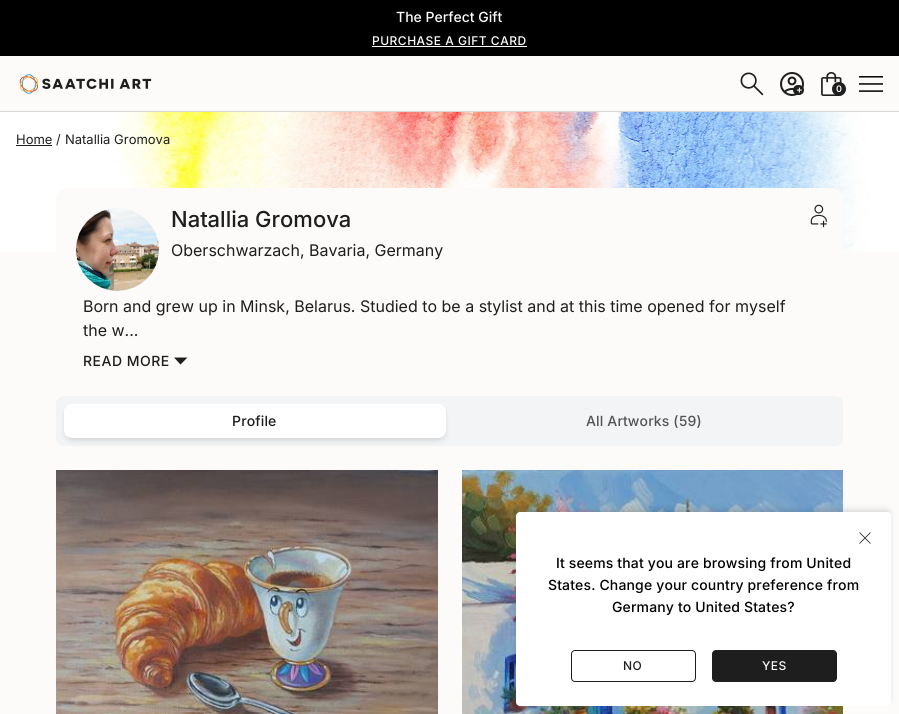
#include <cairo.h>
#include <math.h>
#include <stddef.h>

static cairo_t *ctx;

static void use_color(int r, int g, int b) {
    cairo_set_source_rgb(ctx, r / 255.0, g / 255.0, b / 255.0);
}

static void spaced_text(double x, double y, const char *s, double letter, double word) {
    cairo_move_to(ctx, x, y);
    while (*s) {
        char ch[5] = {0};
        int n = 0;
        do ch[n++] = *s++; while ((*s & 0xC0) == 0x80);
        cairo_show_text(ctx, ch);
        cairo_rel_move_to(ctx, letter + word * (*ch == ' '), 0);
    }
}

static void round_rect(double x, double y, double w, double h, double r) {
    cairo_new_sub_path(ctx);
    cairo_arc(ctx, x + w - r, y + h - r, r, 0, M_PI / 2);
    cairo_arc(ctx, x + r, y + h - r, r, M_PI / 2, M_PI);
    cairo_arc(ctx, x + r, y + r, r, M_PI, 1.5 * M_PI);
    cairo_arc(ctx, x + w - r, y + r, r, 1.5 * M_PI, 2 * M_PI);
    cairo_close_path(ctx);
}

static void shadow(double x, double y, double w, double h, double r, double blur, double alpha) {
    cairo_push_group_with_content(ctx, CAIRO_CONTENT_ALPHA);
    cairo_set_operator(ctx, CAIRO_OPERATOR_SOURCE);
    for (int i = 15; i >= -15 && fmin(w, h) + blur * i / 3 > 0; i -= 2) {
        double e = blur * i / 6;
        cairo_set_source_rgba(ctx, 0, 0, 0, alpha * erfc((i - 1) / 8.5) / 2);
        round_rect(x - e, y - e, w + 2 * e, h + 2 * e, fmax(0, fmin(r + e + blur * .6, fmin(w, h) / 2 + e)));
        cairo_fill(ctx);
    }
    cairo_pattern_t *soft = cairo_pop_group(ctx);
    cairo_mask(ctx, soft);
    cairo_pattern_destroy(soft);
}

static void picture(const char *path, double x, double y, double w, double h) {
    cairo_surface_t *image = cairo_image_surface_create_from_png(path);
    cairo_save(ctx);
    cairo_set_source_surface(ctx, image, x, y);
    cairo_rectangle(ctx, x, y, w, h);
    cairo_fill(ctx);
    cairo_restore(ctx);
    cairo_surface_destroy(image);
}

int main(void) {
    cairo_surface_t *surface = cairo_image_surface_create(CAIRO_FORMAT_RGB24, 899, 714);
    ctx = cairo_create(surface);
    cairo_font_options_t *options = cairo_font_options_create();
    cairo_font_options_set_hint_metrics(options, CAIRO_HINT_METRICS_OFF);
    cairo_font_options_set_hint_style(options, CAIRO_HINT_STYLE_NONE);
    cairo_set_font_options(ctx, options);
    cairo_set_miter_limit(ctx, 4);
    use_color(252, 251, 249);
    cairo_paint(ctx);
    use_color(0, 0, 0);
    cairo_rectangle(ctx, 0, 0, 899, 56);
    cairo_fill(ctx);
    cairo_select_font_face(ctx, "Inter Medium", CAIRO_FONT_SLANT_NORMAL, CAIRO_FONT_WEIGHT_NORMAL);
    cairo_set_font_size(ctx, 14);
    use_color(255, 255, 255);
    cairo_move_to(ctx, 396, 22);
    cairo_show_text(ctx, "The Perfect Gift");
    cairo_set_font_size(ctx, 12);
    spaced_text(372, 45, "PURCHASE A GIFT CARD", 0.5, 0);
    cairo_rectangle(ctx, 372, 46, 155, 1);
    cairo_fill(ctx);
    use_color(216, 216, 216);
    cairo_rectangle(ctx, 0, 111, 899, 1);
    cairo_fill(ctx);
    picture("img1.png", 19, 74, 133, 20);
    picture("img2.png", 740, 72, 24, 24);
    picture("img3.png", 780, 72, 24, 24);
    use_color(30, 30, 30);
    round_rect(793, 85, 11, 10, 5);
    cairo_fill(ctx);
    cairo_select_font_face(ctx, "Inter SemiBold", CAIRO_FONT_SLANT_NORMAL, CAIRO_FONT_WEIGHT_NORMAL);
    cairo_set_font_size(ctx, 10);
    use_color(252, 251, 249);
    cairo_move_to(ctx, 796, 93);
    cairo_show_text(ctx, "+");
    picture("img4.png", 821, 72, 21, 24);
    use_color(30, 30, 30);
    cairo_arc(ctx, 839, 89, 7, 0, 2 * M_PI);
    cairo_fill(ctx);
    cairo_set_font_size(ctx, 9);
    use_color(252, 251, 249);
    cairo_move_to(ctx, 836, 92);
    cairo_show_text(ctx, "0");
    picture("img5.png", 859, 76, 24, 16);
    picture("img6.png", 0, 112, 899, 140);
    cairo_select_font_face(ctx, "Inter", CAIRO_FONT_SLANT_NORMAL, CAIRO_FONT_WEIGHT_NORMAL);
    cairo_set_font_size(ctx, 13);
    use_color(30, 30, 30);
    cairo_move_to(ctx, 16, 144);
    cairo_show_text(ctx, "Home");
    cairo_rectangle(ctx, 16, 145, 36, 1);
    cairo_fill(ctx);
    cairo_move_to(ctx, 56, 144);
    cairo_show_text(ctx, "/");
    cairo_move_to(ctx, 65, 144);
    cairo_show_text(ctx, "Natallia Gromova");
    use_color(252, 251, 249);
    round_rect(56, 188, 787, 184, 12);
    cairo_fill(ctx);
    picture("img7.png", 76, 208, 83, 83);
    cairo_select_font_face(ctx, "Inter Medium", CAIRO_FONT_SLANT_NORMAL, CAIRO_FONT_WEIGHT_NORMAL);
    cairo_set_font_size(ctx, 22);
    use_color(30, 30, 30);
    cairo_move_to(ctx, 171, 227);
    cairo_show_text(ctx, "Natallia Gromova");
    cairo_select_font_face(ctx, "Inter", CAIRO_FONT_SLANT_NORMAL, CAIRO_FONT_WEIGHT_NORMAL);
    cairo_set_font_size(ctx, 16);
    cairo_move_to(ctx, 171, 256);
    cairo_show_text(ctx, "Oberschwarzach, Bavaria, Germany");
    cairo_move_to(ctx, 83, 312);
    cairo_show_text(ctx, "Born and grew up in Minsk, Belarus. Studied to be a stylist and at this time opened for myself");
    cairo_move_to(ctx, 83, 336);
    cairo_show_text(ctx, "the w...");
    cairo_select_font_face(ctx, "Inter Medium", CAIRO_FONT_SLANT_NORMAL, CAIRO_FONT_WEIGHT_NORMAL);
    cairo_set_font_size(ctx, 14);
    spaced_text(83, 366, "READ MORE", 0.5, 0);
    cairo_new_path(ctx);
    cairo_move_to(ctx, 180.5, 364.5);
    cairo_line_to(ctx, 174, 357.5);
    cairo_line_to(ctx, 187.5, 357.5);
    cairo_close_path(ctx);
    cairo_fill(ctx);
    picture("img8.png", 810, 204, 17, 24);
    use_color(242, 244, 245);
    round_rect(56, 396, 787, 50, 8);
    cairo_fill(ctx);
    use_color(18, 18, 18);
    shadow(65, 407, 380, 32, 7, 2, 0.06);
    shadow(65, 409, 380, 32, 7, 3, 0.1);
    use_color(255, 255, 255);
    round_rect(64, 404, 382, 34, 8);
    cairo_fill(ctx);
    use_color(30, 30, 30);
    spaced_text(232, 426, "Profile", 0.15, 0);
    use_color(83, 84, 84);
    spaced_text(586, 426, "All Artworks (59)", 0.15, 0);
    picture("img9.png", 56, 470, 382, 244);
    picture("img10.png", 462, 470, 381, 244);
    use_color(18, 18, 18);
    shadow(517, 511, 373, 192, 3, 2, 0.06);
    shadow(517, 509, 373, 192, 3, 3, 0.1);
    use_color(255, 255, 255);
    round_rect(516, 512, 375, 194, 4);
    cairo_fill(ctx);
    cairo_new_path(ctx);
    cairo_move_to(ctx, 859.5, 532.5);
    cairo_line_to(ctx, 870.5, 543.5);
    cairo_move_to(ctx, 870.5, 532.5);
    cairo_line_to(ctx, 859.5, 543.5);
    use_color(30, 30, 30);
    cairo_set_line_width(ctx, 0.8);
    cairo_stroke(ctx);
    use_color(0, 0, 0);
    spaced_text(556, 568, "It seems that you are browsing from United", 0.15, 0);
    spaced_text(548, 590, "States. Change your country preference from", 0.15, 0);
    spaced_text(612, 612, "Germany to United States?", 0.15, 0);
    round_rect(571.5, 650.5, 124, 31, 3.5);
    use_color(30, 30, 30);
    cairo_set_line_width(ctx, 1);
    cairo_stroke(ctx);
    cairo_set_font_size(ctx, 12);
    spaced_text(623, 670, "NO", 0.5, 0);
    round_rect(712, 650, 125, 32, 4);
    cairo_fill(ctx);
    use_color(252, 251, 249);
    spaced_text(762, 670, "YES", 0.5, 0);
    cairo_surface_write_to_png(surface, "result.png");
    cairo_font_options_destroy(options);
    cairo_destroy(ctx);
    cairo_surface_destroy(surface);
    return 0;
}
